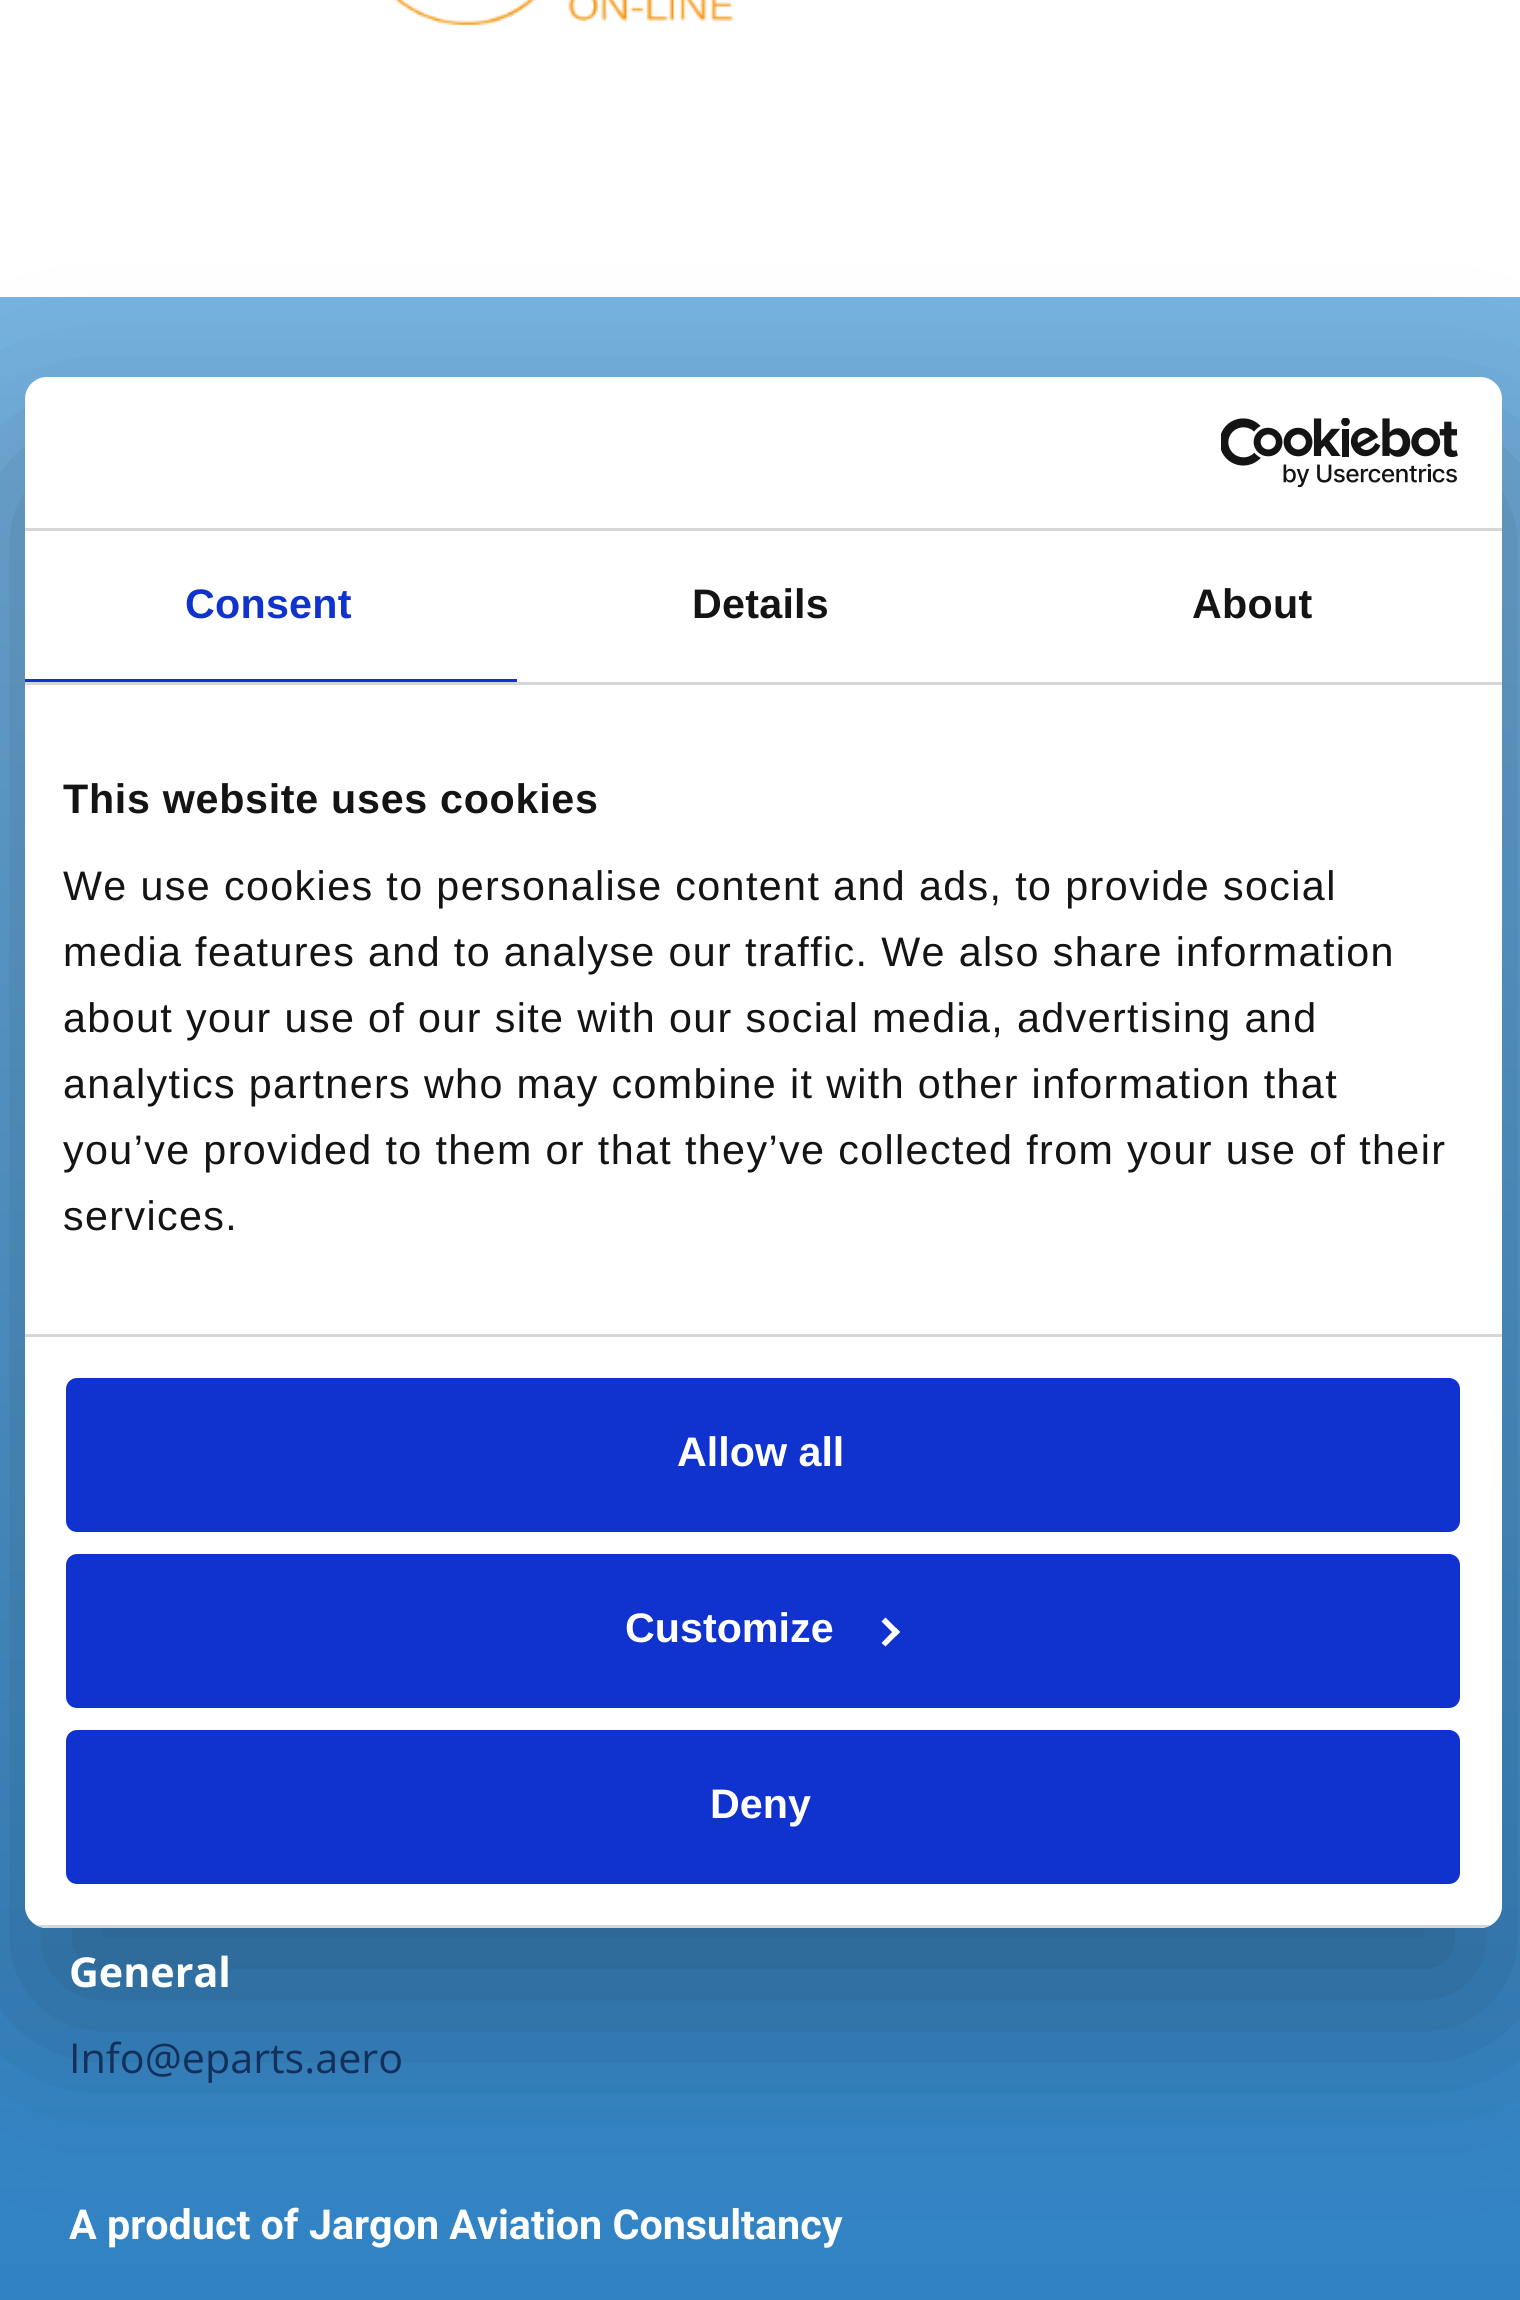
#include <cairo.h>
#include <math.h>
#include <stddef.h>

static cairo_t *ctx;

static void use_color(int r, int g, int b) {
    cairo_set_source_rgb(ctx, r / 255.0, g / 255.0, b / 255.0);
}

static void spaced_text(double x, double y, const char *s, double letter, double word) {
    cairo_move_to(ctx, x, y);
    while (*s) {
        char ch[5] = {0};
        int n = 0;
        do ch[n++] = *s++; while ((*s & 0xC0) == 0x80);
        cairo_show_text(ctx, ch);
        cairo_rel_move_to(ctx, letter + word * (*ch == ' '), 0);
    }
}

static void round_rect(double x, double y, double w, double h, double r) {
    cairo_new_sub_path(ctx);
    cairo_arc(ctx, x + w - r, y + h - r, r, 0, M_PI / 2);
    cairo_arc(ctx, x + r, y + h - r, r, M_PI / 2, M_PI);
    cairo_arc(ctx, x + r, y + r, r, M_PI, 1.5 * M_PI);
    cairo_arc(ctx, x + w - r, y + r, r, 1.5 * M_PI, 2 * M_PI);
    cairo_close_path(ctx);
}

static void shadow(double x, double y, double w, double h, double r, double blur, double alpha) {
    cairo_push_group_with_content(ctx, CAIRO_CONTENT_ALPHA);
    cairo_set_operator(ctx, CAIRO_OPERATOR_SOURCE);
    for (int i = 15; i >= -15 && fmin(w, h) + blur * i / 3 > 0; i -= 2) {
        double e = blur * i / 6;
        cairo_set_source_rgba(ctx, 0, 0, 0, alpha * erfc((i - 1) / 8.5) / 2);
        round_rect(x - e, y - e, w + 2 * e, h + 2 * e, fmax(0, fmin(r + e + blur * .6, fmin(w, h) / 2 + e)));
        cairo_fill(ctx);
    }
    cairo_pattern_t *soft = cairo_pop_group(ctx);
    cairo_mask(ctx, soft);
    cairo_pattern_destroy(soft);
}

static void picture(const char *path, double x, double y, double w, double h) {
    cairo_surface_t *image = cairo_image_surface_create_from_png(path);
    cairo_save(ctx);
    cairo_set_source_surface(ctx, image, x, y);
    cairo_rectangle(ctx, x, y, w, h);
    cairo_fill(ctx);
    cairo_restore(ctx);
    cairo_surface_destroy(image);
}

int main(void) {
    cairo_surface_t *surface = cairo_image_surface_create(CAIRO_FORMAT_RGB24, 1520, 2300);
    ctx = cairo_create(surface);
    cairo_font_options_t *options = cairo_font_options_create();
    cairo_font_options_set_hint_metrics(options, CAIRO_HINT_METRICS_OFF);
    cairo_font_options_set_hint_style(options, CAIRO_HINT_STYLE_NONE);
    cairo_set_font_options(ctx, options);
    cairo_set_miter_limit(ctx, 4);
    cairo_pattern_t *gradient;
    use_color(255, 255, 255);
    cairo_paint(ctx);
    gradient = cairo_pattern_create_linear(760, 297, 760, 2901);
    cairo_pattern_add_color_stop_rgba(gradient, 0, 0.467, 0.702, 0.878, 1);
    cairo_pattern_add_color_stop_rgba(gradient, 1, 0.102, 0.451, 0.733, 1);
    cairo_set_source(ctx, gradient);
    cairo_pattern_destroy(gradient);
    cairo_rectangle(ctx, 0, 297, 1520, 2003);
    cairo_fill(ctx);
    cairo_save(ctx);
    cairo_set_fill_rule(ctx, CAIRO_FILL_RULE_EVEN_ODD);
    cairo_new_path(ctx);
    cairo_move_to(ctx, 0, 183);
    cairo_line_to(ctx, 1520, 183);
    cairo_line_to(ctx, 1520, 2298);
    cairo_line_to(ctx, 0, 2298);
    cairo_close_path(ctx);
    cairo_move_to(ctx, 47, 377);
    cairo_line_to(ctx, 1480, 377);
    cairo_curve_to(ctx, 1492, 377, 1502, 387, 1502, 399);
    cairo_line_to(ctx, 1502, 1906);
    cairo_curve_to(ctx, 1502, 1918, 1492, 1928, 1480, 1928);
    cairo_line_to(ctx, 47, 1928);
    cairo_curve_to(ctx, 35, 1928, 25, 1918, 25, 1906);
    cairo_line_to(ctx, 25, 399);
    cairo_curve_to(ctx, 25, 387, 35, 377, 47, 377);
    cairo_close_path(ctx);
    cairo_clip(ctx);
    use_color(0, 0, 0);
    shadow(25, 465, 1477, 1551, 22, 93.5, 0.3);
    cairo_restore(ctx);
    use_color(255, 255, 255);
    round_rect(25, 377, 1477, 1551, 22);
    cairo_fill(ctx);
    use_color(214, 214, 214);
    cairo_rectangle(ctx, 25, 528, 1477, 3);
    cairo_fill(ctx);
    picture("img1.png", 1221, 418, 237, 69);
    cairo_rectangle(ctx, 25, 682, 1477, 3);
    cairo_fill(ctx);
    use_color(16, 50, 207);
    cairo_rectangle(ctx, 25, 679, 492, 3);
    cairo_fill(ctx);
    cairo_select_font_face(ctx, "Liberation Sans", CAIRO_FONT_SLANT_NORMAL, CAIRO_FONT_WEIGHT_BOLD);
    cairo_set_font_size(ctx, 41.25);
    spaced_text(185, 618, "Consent", 0.25, 0);
    use_color(20, 20, 20);
    spaced_text(692, 618, "Details", 0.25, 0);
    spaced_text(1192, 618, "About", 0.25, 0);
    use_color(214, 214, 214);
    cairo_rectangle(ctx, 25, 1334, 1477, 3);
    cairo_fill(ctx);
    use_color(20, 20, 20);
    spaced_text(63, 813, "This website uses cookies", 0.7, 0);
    cairo_select_font_face(ctx, "Liberation Sans", CAIRO_FONT_SLANT_NORMAL, CAIRO_FONT_WEIGHT_NORMAL);
    spaced_text(63, 900, "We use cookies to personalise content and ads, to provide social", 1.38, 0);
    spaced_text(63, 966, "media features and to analyse our traffic. We also share information", 1.38, 0);
    spaced_text(63, 1032, "about your use of our site with our social media, advertising and", 1.38, 0);
    spaced_text(63, 1098, "analytics partners who may combine it with other information that", 1.38, 0);
    spaced_text(63, 1164, "you’ve provided to them or that they’ve collected from your use of their", 1.38, 0);
    spaced_text(63, 1230, "services.", 1.38, 0);
    cairo_save(ctx);
    round_rect(25, 377, 1477, 1551, 22);
    cairo_clip(ctx);
    use_color(214, 214, 214);
    cairo_rectangle(ctx, 36, 1925, 1455, 3);
    cairo_fill(ctx);
    cairo_restore(ctx);
    use_color(16, 50, 207);
    round_rect(69, 1381, 1388, 148, 8);
    cairo_fill_preserve(ctx);
    cairo_set_line_width(ctx, 6);
    cairo_stroke(ctx);
    cairo_select_font_face(ctx, "Liberation Sans", CAIRO_FONT_SLANT_NORMAL, CAIRO_FONT_WEIGHT_BOLD);
    use_color(255, 255, 255);
    cairo_move_to(ctx, 677, 1466);
    cairo_show_text(ctx, "Allow all");
    use_color(16, 50, 207);
    round_rect(69, 1557, 1388, 148, 8);
    cairo_fill_preserve(ctx);
    cairo_stroke(ctx);
    use_color(255, 255, 255);
    cairo_move_to(ctx, 625, 1642);
    cairo_show_text(ctx, "Customize");
    cairo_new_path(ctx);
    cairo_move_to(ctx, 885.5, 1617.5);
    cairo_line_to(ctx, 900, 1632);
    cairo_line_to(ctx, 896, 1636);
    cairo_line_to(ctx, 881.5, 1621.5);
    cairo_close_path(ctx);
    cairo_fill(ctx);
    cairo_new_path(ctx);
    cairo_move_to(ctx, 896, 1628);
    cairo_line_to(ctx, 900, 1632);
    cairo_line_to(ctx, 885.5, 1646.5);
    cairo_line_to(ctx, 881.5, 1643);
    cairo_close_path(ctx);
    cairo_fill(ctx);
    use_color(16, 50, 207);
    round_rect(69, 1733, 1388, 148, 8);
    cairo_fill_preserve(ctx);
    cairo_stroke(ctx);
    use_color(255, 255, 255);
    cairo_move_to(ctx, 710, 1818);
    cairo_show_text(ctx, "Deny");
    picture("img2.png", 394, 0, 340, 25);
    cairo_select_font_face(ctx, "Open Sans", CAIRO_FONT_SLANT_NORMAL, CAIRO_FONT_WEIGHT_BOLD);
    cairo_move_to(ctx, 69, 1987);
    cairo_show_text(ctx, "General");
    cairo_select_font_face(ctx, "Open Sans", CAIRO_FONT_SLANT_NORMAL, CAIRO_FONT_WEIGHT_NORMAL);
    use_color(18, 48, 90);
    cairo_move_to(ctx, 69, 2073);
    cairo_show_text(ctx, "Info@eparts.aero");
    cairo_select_font_face(ctx, "Roboto", CAIRO_FONT_SLANT_NORMAL, CAIRO_FONT_WEIGHT_BOLD);
    use_color(255, 255, 255);
    cairo_move_to(ctx, 69, 2239);
    cairo_show_text(ctx, "A product of Jargon Aviation Consultancy");
    cairo_surface_write_to_png(surface, "result.png");
    cairo_font_options_destroy(options);
    cairo_destroy(ctx);
    cairo_surface_destroy(surface);
    return 0;
}
